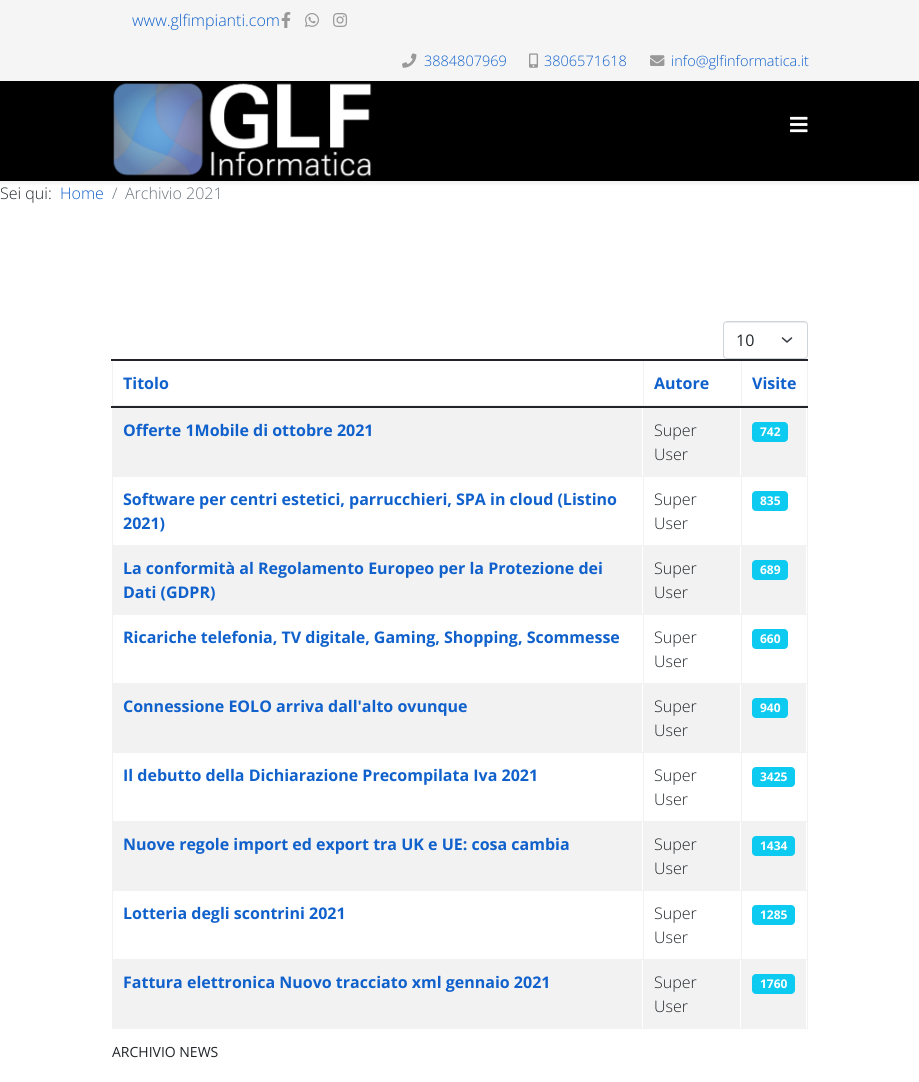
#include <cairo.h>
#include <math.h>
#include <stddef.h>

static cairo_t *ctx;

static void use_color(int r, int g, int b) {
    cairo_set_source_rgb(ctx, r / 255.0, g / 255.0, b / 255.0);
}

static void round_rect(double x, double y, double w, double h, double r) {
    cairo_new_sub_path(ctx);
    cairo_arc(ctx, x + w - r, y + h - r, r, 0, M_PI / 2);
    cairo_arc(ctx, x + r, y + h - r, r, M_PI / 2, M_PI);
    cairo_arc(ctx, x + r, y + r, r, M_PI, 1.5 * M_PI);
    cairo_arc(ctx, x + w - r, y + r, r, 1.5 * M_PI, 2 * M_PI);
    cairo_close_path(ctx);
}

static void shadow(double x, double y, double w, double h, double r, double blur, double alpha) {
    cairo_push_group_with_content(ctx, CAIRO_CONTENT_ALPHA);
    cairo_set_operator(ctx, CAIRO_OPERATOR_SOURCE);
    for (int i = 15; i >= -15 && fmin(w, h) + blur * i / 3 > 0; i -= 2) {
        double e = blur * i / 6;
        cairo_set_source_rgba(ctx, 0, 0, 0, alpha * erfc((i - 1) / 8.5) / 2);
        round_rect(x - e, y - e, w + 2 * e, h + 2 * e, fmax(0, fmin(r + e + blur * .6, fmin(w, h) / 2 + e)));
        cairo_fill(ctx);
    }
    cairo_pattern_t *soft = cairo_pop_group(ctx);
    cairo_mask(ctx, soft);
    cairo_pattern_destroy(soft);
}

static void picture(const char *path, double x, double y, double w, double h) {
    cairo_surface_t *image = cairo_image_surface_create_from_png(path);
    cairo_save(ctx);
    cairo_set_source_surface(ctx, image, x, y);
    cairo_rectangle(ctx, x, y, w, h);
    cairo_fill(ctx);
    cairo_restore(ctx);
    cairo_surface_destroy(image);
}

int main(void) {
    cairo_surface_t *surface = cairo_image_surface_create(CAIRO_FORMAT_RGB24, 919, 1082);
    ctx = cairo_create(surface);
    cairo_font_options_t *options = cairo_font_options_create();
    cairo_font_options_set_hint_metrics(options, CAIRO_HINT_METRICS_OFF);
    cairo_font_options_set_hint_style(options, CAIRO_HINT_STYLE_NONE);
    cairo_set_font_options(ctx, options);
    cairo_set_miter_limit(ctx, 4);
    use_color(255, 255, 255);
    cairo_paint(ctx);
    use_color(245, 245, 245);
    cairo_rectangle(ctx, 0, 0, 919, 81);
    cairo_fill(ctx);
    cairo_select_font_face(ctx, "Open Sans Light", CAIRO_FONT_SLANT_NORMAL, CAIRO_FONT_WEIGHT_NORMAL);
    cairo_set_font_size(ctx, 16);
    use_color(16, 97, 204);
    cairo_move_to(ctx, 132, 26);
    cairo_show_text(ctx, "www.glfimpianti.com");
    picture("img1.png", 281, 12, 10, 16);
    picture("img2.png", 305, 13, 14, 14);
    picture("img3.png", 333, 13, 14, 14);
    picture("img4.png", 402, 53, 15, 15);
    cairo_set_font_size(ctx, 14.5);
    cairo_move_to(ctx, 424, 66);
    cairo_show_text(ctx, "3884807969");
    picture("img5.png", 529, 53, 9, 15);
    cairo_move_to(ctx, 544, 66);
    cairo_show_text(ctx, "3806571618");
    picture("img6.png", 650, 55, 15, 11);
    cairo_move_to(ctx, 671, 66);
    cairo_show_text(ctx, "info@glfinformatica.it");
    use_color(0, 0, 0);
    shadow(0, 84, 919, 100, 0, 1.5, 0.05);
    use_color(0, 0, 0);
    cairo_rectangle(ctx, 0, 81, 919, 100);
    cairo_fill(ctx);
    picture("img7.png", 113, 83, 259, 94);
    picture("img8.png", 790, 116, 18, 17);
    cairo_set_font_size(ctx, 16);
    use_color(33, 37, 41);
    cairo_move_to(ctx, 0, 199);
    cairo_show_text(ctx, "Sei qui:");
    use_color(16, 97, 204);
    cairo_move_to(ctx, 60, 199);
    cairo_show_text(ctx, "Home");
    use_color(108, 117, 125);
    cairo_move_to(ctx, 112, 199);
    cairo_show_text(ctx, "/");
    cairo_move_to(ctx, 125, 199);
    cairo_show_text(ctx, "Archivio 2021");
    cairo_new_path(ctx);
    cairo_move_to(ctx, 782.5, 338);
    cairo_line_to(ctx, 787, 342);
    cairo_line_to(ctx, 791.5, 338);
    use_color(52, 58, 64);
    cairo_set_line_width(ctx, 1.5);
    cairo_set_line_cap(ctx, CAIRO_LINE_CAP_ROUND);
    cairo_set_line_join(ctx, CAIRO_LINE_JOIN_ROUND);
    cairo_stroke(ctx);
    use_color(236, 236, 236);
    cairo_new_path(ctx);
    cairo_move_to(ctx, 727, 323);
    cairo_line_to(ctx, 804, 323);
    cairo_curve_to(ctx, 806, 323, 807, 324, 807, 326);
    cairo_curve_to(ctx, 807, 319, 795, 322, 791, 322);
    cairo_line_to(ctx, 740, 322);
    cairo_curve_to(ctx, 736, 322, 724, 319, 724, 326);
    cairo_curve_to(ctx, 724, 324, 725, 323, 727, 323);
    cairo_close_path(ctx);
    cairo_fill(ctx);
    round_rect(723.5, 321.5, 84, 37, 3.5);
    use_color(206, 212, 218);
    cairo_set_line_width(ctx, 1);
    cairo_set_line_cap(ctx, CAIRO_LINE_CAP_BUTT);
    cairo_set_line_join(ctx, CAIRO_LINE_JOIN_MITER);
    cairo_stroke(ctx);
    cairo_select_font_face(ctx, "Open Sans", CAIRO_FONT_SLANT_NORMAL, CAIRO_FONT_WEIGHT_NORMAL);
    use_color(33, 37, 41);
    cairo_move_to(ctx, 736, 346);
    cairo_show_text(ctx, "10");
    use_color(242, 242, 242);
    cairo_rectangle(ctx, 807, 360, 1, 46);
    cairo_fill(ctx);
    cairo_rectangle(ctx, 112, 405, 696, 1);
    cairo_fill(ctx);
    cairo_rectangle(ctx, 112, 360, 1, 46);
    cairo_fill(ctx);
    cairo_rectangle(ctx, 643, 360, 1, 46);
    cairo_fill(ctx);
    cairo_rectangle(ctx, 741, 360, 1, 46);
    cairo_fill(ctx);
    use_color(33, 37, 41);
    cairo_rectangle(ctx, 111, 359, 697, 2);
    cairo_fill(ctx);
    cairo_select_font_face(ctx, "Open Sans", CAIRO_FONT_SLANT_NORMAL, CAIRO_FONT_WEIGHT_BOLD);
    use_color(16, 97, 204);
    cairo_move_to(ctx, 123, 389);
    cairo_show_text(ctx, "Titolo");
    cairo_move_to(ctx, 654, 389);
    cairo_show_text(ctx, "Autore");
    cairo_move_to(ctx, 752, 389);
    cairo_show_text(ctx, "Visite");
    use_color(242, 242, 242);
    cairo_rectangle(ctx, 112, 476, 696, 1);
    cairo_fill(ctx);
    cairo_rectangle(ctx, 112, 545, 696, 1);
    cairo_fill(ctx);
    cairo_rectangle(ctx, 112, 614, 696, 1);
    cairo_fill(ctx);
    cairo_rectangle(ctx, 112, 683, 696, 1);
    cairo_fill(ctx);
    cairo_rectangle(ctx, 112, 752, 696, 1);
    cairo_fill(ctx);
    cairo_rectangle(ctx, 112, 821, 696, 1);
    cairo_fill(ctx);
    cairo_rectangle(ctx, 112, 890, 696, 1);
    cairo_fill(ctx);
    cairo_rectangle(ctx, 112, 959, 696, 1);
    cairo_fill(ctx);
    cairo_rectangle(ctx, 807, 959, 1, 70);
    cairo_fill(ctx);
    cairo_rectangle(ctx, 807, 890, 1, 70);
    cairo_fill(ctx);
    cairo_rectangle(ctx, 807, 821, 1, 70);
    cairo_fill(ctx);
    cairo_rectangle(ctx, 807, 752, 1, 70);
    cairo_fill(ctx);
    cairo_rectangle(ctx, 807, 683, 1, 70);
    cairo_fill(ctx);
    cairo_rectangle(ctx, 807, 614, 1, 70);
    cairo_fill(ctx);
    cairo_rectangle(ctx, 807, 545, 1, 70);
    cairo_fill(ctx);
    cairo_rectangle(ctx, 807, 407, 1, 139);
    cairo_fill(ctx);
    cairo_rectangle(ctx, 112, 1028, 696, 1);
    cairo_fill(ctx);
    cairo_rectangle(ctx, 112, 959, 1, 70);
    cairo_fill(ctx);
    cairo_rectangle(ctx, 112, 890, 1, 70);
    cairo_fill(ctx);
    cairo_rectangle(ctx, 112, 821, 1, 70);
    cairo_fill(ctx);
    cairo_rectangle(ctx, 112, 752, 1, 70);
    cairo_fill(ctx);
    cairo_rectangle(ctx, 112, 683, 1, 70);
    cairo_fill(ctx);
    cairo_rectangle(ctx, 112, 614, 1, 70);
    cairo_fill(ctx);
    cairo_rectangle(ctx, 112, 545, 1, 70);
    cairo_fill(ctx);
    cairo_rectangle(ctx, 112, 407, 1, 139);
    cairo_fill(ctx);
    cairo_rectangle(ctx, 643, 407, 1, 622);
    cairo_fill(ctx);
    cairo_rectangle(ctx, 741, 407, 1, 622);
    cairo_fill(ctx);
    use_color(33, 37, 41);
    cairo_rectangle(ctx, 111, 406, 697, 2);
    cairo_fill(ctx);
    use_color(242, 242, 242);
    cairo_rectangle(ctx, 113, 408, 529, 68);
    cairo_fill(ctx);
    use_color(16, 97, 204);
    cairo_move_to(ctx, 123, 436);
    cairo_show_text(ctx, "Offerte 1Mobile di ottobre 2021");
    use_color(242, 242, 242);
    cairo_rectangle(ctx, 644, 408, 96, 68);
    cairo_fill(ctx);
    cairo_select_font_face(ctx, "Open Sans Light", CAIRO_FONT_SLANT_NORMAL, CAIRO_FONT_WEIGHT_NORMAL);
    use_color(33, 37, 41);
    cairo_move_to(ctx, 654, 436);
    cairo_show_text(ctx, "Super");
    cairo_move_to(ctx, 654, 460);
    cairo_show_text(ctx, "User");
    use_color(242, 242, 242);
    cairo_rectangle(ctx, 742, 408, 64, 68);
    cairo_fill(ctx);
    use_color(13, 202, 240);
    round_rect(752, 422, 36, 20, 4);
    cairo_fill(ctx);
    cairo_select_font_face(ctx, "Open Sans", CAIRO_FONT_SLANT_NORMAL, CAIRO_FONT_WEIGHT_BOLD);
    cairo_set_font_size(ctx, 12);
    use_color(255, 255, 255);
    cairo_move_to(ctx, 760, 436);
    cairo_show_text(ctx, "742");
    cairo_set_font_size(ctx, 16);
    use_color(16, 97, 204);
    cairo_move_to(ctx, 123, 505);
    cairo_show_text(ctx, "Software per centri estetici, parrucchieri, SPA in cloud (Listino");
    cairo_move_to(ctx, 123, 529);
    cairo_show_text(ctx, "2021)");
    cairo_select_font_face(ctx, "Open Sans Light", CAIRO_FONT_SLANT_NORMAL, CAIRO_FONT_WEIGHT_NORMAL);
    use_color(33, 37, 41);
    cairo_move_to(ctx, 654, 505);
    cairo_show_text(ctx, "Super");
    cairo_move_to(ctx, 654, 529);
    cairo_show_text(ctx, "User");
    use_color(13, 202, 240);
    round_rect(752, 491, 36, 20, 4);
    cairo_fill(ctx);
    cairo_select_font_face(ctx, "Open Sans", CAIRO_FONT_SLANT_NORMAL, CAIRO_FONT_WEIGHT_BOLD);
    cairo_set_font_size(ctx, 12);
    use_color(255, 255, 255);
    cairo_move_to(ctx, 760, 505);
    cairo_show_text(ctx, "835");
    use_color(242, 242, 242);
    cairo_rectangle(ctx, 113, 546, 529, 68);
    cairo_fill(ctx);
    cairo_set_font_size(ctx, 16);
    use_color(16, 97, 204);
    cairo_move_to(ctx, 123, 574);
    cairo_show_text(ctx, "La conformità al Regolamento Europeo per la Protezione dei");
    cairo_move_to(ctx, 123, 598);
    cairo_show_text(ctx, "Dati (GDPR)");
    use_color(242, 242, 242);
    cairo_rectangle(ctx, 644, 546, 96, 68);
    cairo_fill(ctx);
    cairo_select_font_face(ctx, "Open Sans Light", CAIRO_FONT_SLANT_NORMAL, CAIRO_FONT_WEIGHT_NORMAL);
    use_color(33, 37, 41);
    cairo_move_to(ctx, 654, 574);
    cairo_show_text(ctx, "Super");
    cairo_move_to(ctx, 654, 598);
    cairo_show_text(ctx, "User");
    use_color(242, 242, 242);
    cairo_rectangle(ctx, 742, 546, 64, 68);
    cairo_fill(ctx);
    use_color(13, 202, 240);
    round_rect(752, 560, 36, 20, 4);
    cairo_fill(ctx);
    cairo_select_font_face(ctx, "Open Sans", CAIRO_FONT_SLANT_NORMAL, CAIRO_FONT_WEIGHT_BOLD);
    cairo_set_font_size(ctx, 12);
    use_color(255, 255, 255);
    cairo_move_to(ctx, 760, 574);
    cairo_show_text(ctx, "689");
    cairo_set_font_size(ctx, 16);
    use_color(16, 97, 204);
    cairo_move_to(ctx, 123, 643);
    cairo_show_text(ctx, "Ricariche telefonia, TV digitale, Gaming, Shopping, Scommesse");
    cairo_select_font_face(ctx, "Open Sans Light", CAIRO_FONT_SLANT_NORMAL, CAIRO_FONT_WEIGHT_NORMAL);
    use_color(33, 37, 41);
    cairo_move_to(ctx, 654, 643);
    cairo_show_text(ctx, "Super");
    cairo_move_to(ctx, 654, 667);
    cairo_show_text(ctx, "User");
    use_color(13, 202, 240);
    round_rect(752, 629, 36, 20, 4);
    cairo_fill(ctx);
    cairo_select_font_face(ctx, "Open Sans", CAIRO_FONT_SLANT_NORMAL, CAIRO_FONT_WEIGHT_BOLD);
    cairo_set_font_size(ctx, 12);
    use_color(255, 255, 255);
    cairo_move_to(ctx, 760, 643);
    cairo_show_text(ctx, "660");
    use_color(242, 242, 242);
    cairo_rectangle(ctx, 113, 684, 529, 68);
    cairo_fill(ctx);
    cairo_set_font_size(ctx, 16);
    use_color(16, 97, 204);
    cairo_move_to(ctx, 123, 712);
    cairo_show_text(ctx, "Connessione EOLO arriva dall'alto ovunque");
    use_color(242, 242, 242);
    cairo_rectangle(ctx, 644, 684, 96, 68);
    cairo_fill(ctx);
    cairo_select_font_face(ctx, "Open Sans Light", CAIRO_FONT_SLANT_NORMAL, CAIRO_FONT_WEIGHT_NORMAL);
    use_color(33, 37, 41);
    cairo_move_to(ctx, 654, 712);
    cairo_show_text(ctx, "Super");
    cairo_move_to(ctx, 654, 736);
    cairo_show_text(ctx, "User");
    use_color(242, 242, 242);
    cairo_rectangle(ctx, 742, 684, 64, 68);
    cairo_fill(ctx);
    use_color(13, 202, 240);
    round_rect(752, 698, 36, 20, 4);
    cairo_fill(ctx);
    cairo_select_font_face(ctx, "Open Sans", CAIRO_FONT_SLANT_NORMAL, CAIRO_FONT_WEIGHT_BOLD);
    cairo_set_font_size(ctx, 12);
    use_color(255, 255, 255);
    cairo_move_to(ctx, 760, 712);
    cairo_show_text(ctx, "940");
    cairo_set_font_size(ctx, 16);
    use_color(16, 97, 204);
    cairo_move_to(ctx, 123, 781);
    cairo_show_text(ctx, "Il debutto della Dichiarazione Precompilata Iva 2021");
    cairo_select_font_face(ctx, "Open Sans Light", CAIRO_FONT_SLANT_NORMAL, CAIRO_FONT_WEIGHT_NORMAL);
    use_color(33, 37, 41);
    cairo_move_to(ctx, 654, 781);
    cairo_show_text(ctx, "Super");
    cairo_move_to(ctx, 654, 805);
    cairo_show_text(ctx, "User");
    use_color(13, 202, 240);
    round_rect(752, 767, 43, 20, 4);
    cairo_fill(ctx);
    cairo_select_font_face(ctx, "Open Sans", CAIRO_FONT_SLANT_NORMAL, CAIRO_FONT_WEIGHT_BOLD);
    cairo_set_font_size(ctx, 12);
    use_color(255, 255, 255);
    cairo_move_to(ctx, 760, 781);
    cairo_show_text(ctx, "3425");
    use_color(242, 242, 242);
    cairo_rectangle(ctx, 113, 822, 529, 68);
    cairo_fill(ctx);
    cairo_set_font_size(ctx, 16);
    use_color(16, 97, 204);
    cairo_move_to(ctx, 123, 850);
    cairo_show_text(ctx, "Nuove regole import ed export tra UK e UE: cosa cambia");
    use_color(242, 242, 242);
    cairo_rectangle(ctx, 644, 822, 96, 68);
    cairo_fill(ctx);
    cairo_select_font_face(ctx, "Open Sans Light", CAIRO_FONT_SLANT_NORMAL, CAIRO_FONT_WEIGHT_NORMAL);
    use_color(33, 37, 41);
    cairo_move_to(ctx, 654, 850);
    cairo_show_text(ctx, "Super");
    cairo_move_to(ctx, 654, 874);
    cairo_show_text(ctx, "User");
    use_color(242, 242, 242);
    cairo_rectangle(ctx, 742, 822, 64, 68);
    cairo_fill(ctx);
    use_color(13, 202, 240);
    round_rect(752, 836, 43, 20, 4);
    cairo_fill(ctx);
    cairo_select_font_face(ctx, "Open Sans", CAIRO_FONT_SLANT_NORMAL, CAIRO_FONT_WEIGHT_BOLD);
    cairo_set_font_size(ctx, 12);
    use_color(255, 255, 255);
    cairo_move_to(ctx, 760, 850);
    cairo_show_text(ctx, "1434");
    cairo_set_font_size(ctx, 16);
    use_color(16, 97, 204);
    cairo_move_to(ctx, 123, 919);
    cairo_show_text(ctx, "Lotteria degli scontrini 2021");
    cairo_select_font_face(ctx, "Open Sans Light", CAIRO_FONT_SLANT_NORMAL, CAIRO_FONT_WEIGHT_NORMAL);
    use_color(33, 37, 41);
    cairo_move_to(ctx, 654, 919);
    cairo_show_text(ctx, "Super");
    cairo_move_to(ctx, 654, 943);
    cairo_show_text(ctx, "User");
    use_color(13, 202, 240);
    round_rect(752, 905, 43, 20, 4);
    cairo_fill(ctx);
    cairo_select_font_face(ctx, "Open Sans", CAIRO_FONT_SLANT_NORMAL, CAIRO_FONT_WEIGHT_BOLD);
    cairo_set_font_size(ctx, 12);
    use_color(255, 255, 255);
    cairo_move_to(ctx, 760, 919);
    cairo_show_text(ctx, "1285");
    use_color(242, 242, 242);
    cairo_rectangle(ctx, 113, 960, 529, 68);
    cairo_fill(ctx);
    cairo_set_font_size(ctx, 16);
    use_color(16, 97, 204);
    cairo_move_to(ctx, 123, 988);
    cairo_show_text(ctx, "Fattura elettronica Nuovo tracciato xml gennaio 2021");
    use_color(242, 242, 242);
    cairo_rectangle(ctx, 644, 960, 96, 68);
    cairo_fill(ctx);
    cairo_select_font_face(ctx, "Open Sans Light", CAIRO_FONT_SLANT_NORMAL, CAIRO_FONT_WEIGHT_NORMAL);
    use_color(33, 37, 41);
    cairo_move_to(ctx, 654, 988);
    cairo_show_text(ctx, "Super");
    cairo_move_to(ctx, 654, 1012);
    cairo_show_text(ctx, "User");
    use_color(242, 242, 242);
    cairo_rectangle(ctx, 742, 960, 64, 68);
    cairo_fill(ctx);
    use_color(13, 202, 240);
    round_rect(752, 974, 43, 20, 4);
    cairo_fill(ctx);
    cairo_select_font_face(ctx, "Open Sans", CAIRO_FONT_SLANT_NORMAL, CAIRO_FONT_WEIGHT_BOLD);
    cairo_set_font_size(ctx, 12);
    use_color(255, 255, 255);
    cairo_move_to(ctx, 760, 988);
    cairo_show_text(ctx, "1760");
    cairo_select_font_face(ctx, "Open Sans", CAIRO_FONT_SLANT_NORMAL, CAIRO_FONT_WEIGHT_NORMAL);
    cairo_set_font_size(ctx, 14);
    use_color(33, 37, 41);
    cairo_move_to(ctx, 112, 1057);
    cairo_show_text(ctx, "ARCHIVIO NEWS");
    cairo_surface_write_to_png(surface, "result.png");
    cairo_font_options_destroy(options);
    cairo_destroy(ctx);
    cairo_surface_destroy(surface);
    return 0;
}
